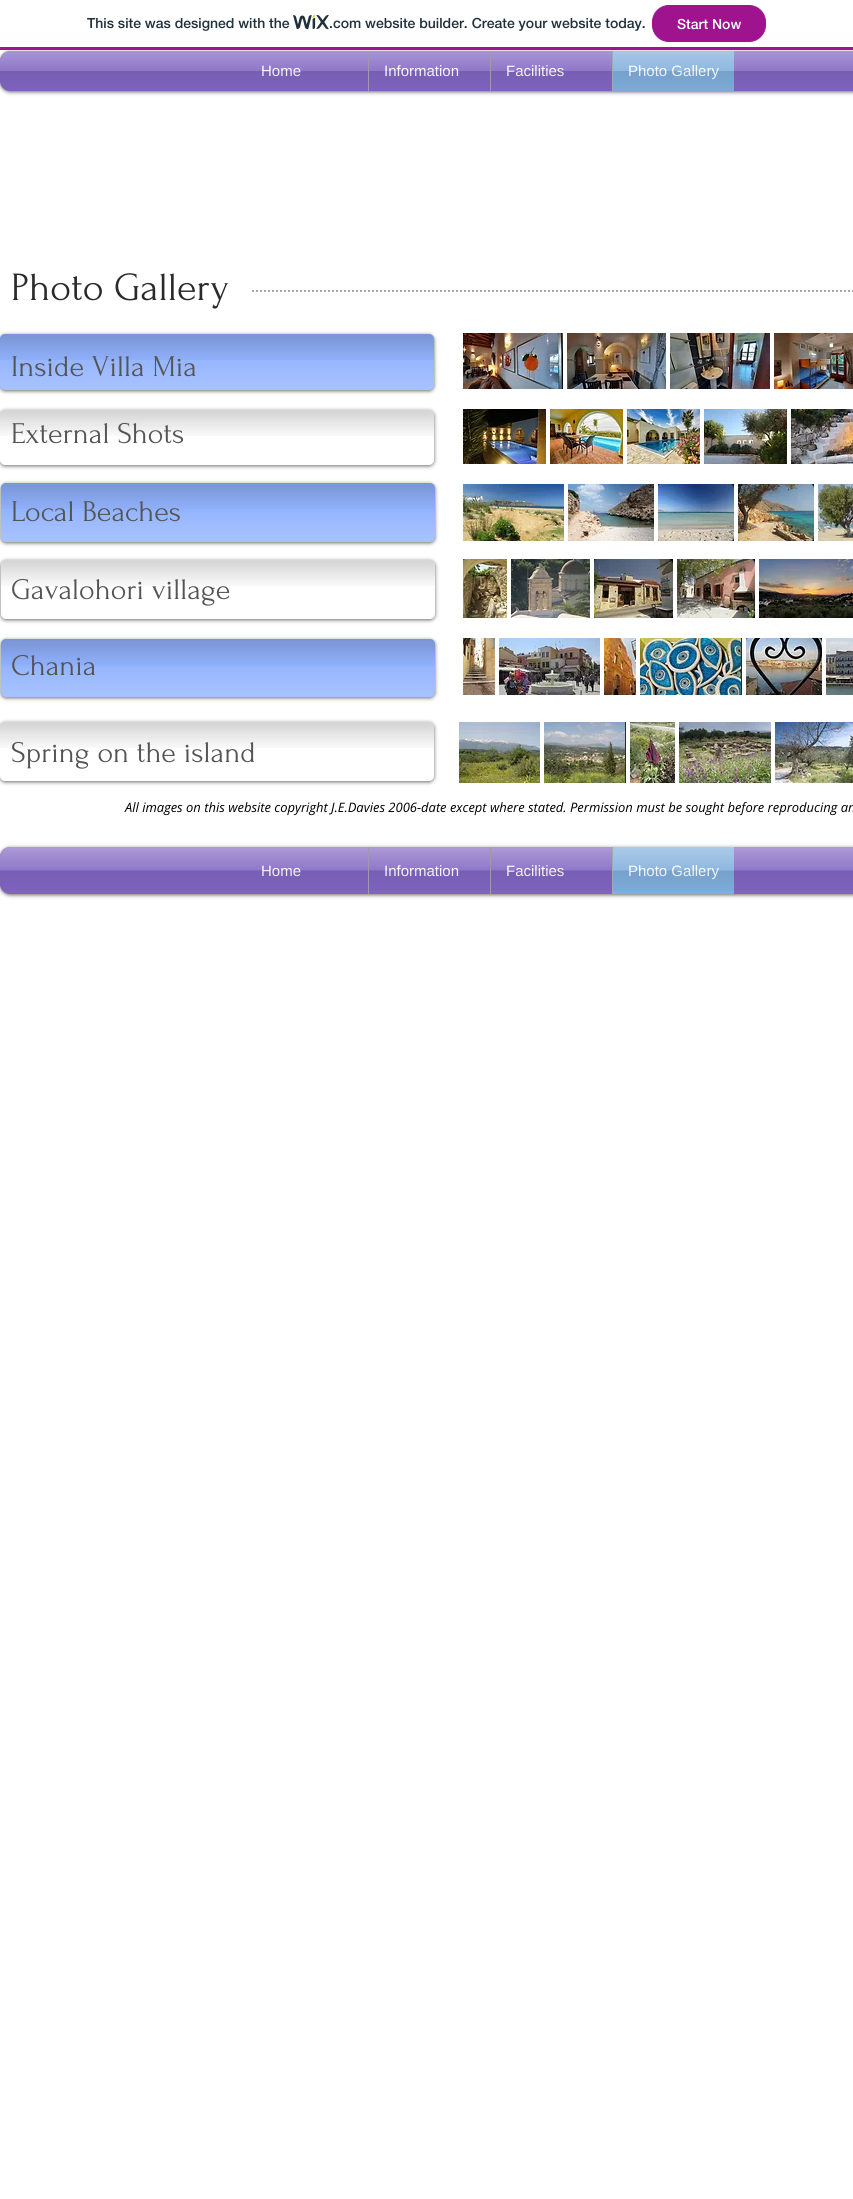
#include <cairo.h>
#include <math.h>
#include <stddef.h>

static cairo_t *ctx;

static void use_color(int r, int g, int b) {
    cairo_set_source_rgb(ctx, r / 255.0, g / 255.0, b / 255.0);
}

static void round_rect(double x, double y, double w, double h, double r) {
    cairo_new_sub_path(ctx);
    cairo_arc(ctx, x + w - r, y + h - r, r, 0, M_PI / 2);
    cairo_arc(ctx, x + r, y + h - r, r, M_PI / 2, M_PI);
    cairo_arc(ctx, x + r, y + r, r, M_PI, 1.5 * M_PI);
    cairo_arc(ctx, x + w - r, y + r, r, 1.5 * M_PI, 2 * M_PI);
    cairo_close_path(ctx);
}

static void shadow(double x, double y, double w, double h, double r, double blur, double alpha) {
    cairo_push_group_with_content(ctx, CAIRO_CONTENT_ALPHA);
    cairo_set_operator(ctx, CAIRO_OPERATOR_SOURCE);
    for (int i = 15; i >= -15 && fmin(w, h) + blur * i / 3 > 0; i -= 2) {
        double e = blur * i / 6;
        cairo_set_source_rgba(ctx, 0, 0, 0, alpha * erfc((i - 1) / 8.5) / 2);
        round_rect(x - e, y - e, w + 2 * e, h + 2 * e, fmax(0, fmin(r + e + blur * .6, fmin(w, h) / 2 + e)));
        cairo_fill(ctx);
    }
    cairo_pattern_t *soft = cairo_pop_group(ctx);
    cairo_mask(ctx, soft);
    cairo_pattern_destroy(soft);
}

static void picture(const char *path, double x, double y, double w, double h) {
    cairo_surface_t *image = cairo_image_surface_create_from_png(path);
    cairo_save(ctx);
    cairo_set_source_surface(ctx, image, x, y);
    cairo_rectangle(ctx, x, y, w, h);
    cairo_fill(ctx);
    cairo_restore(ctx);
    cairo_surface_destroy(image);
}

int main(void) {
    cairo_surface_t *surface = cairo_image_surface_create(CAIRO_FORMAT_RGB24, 853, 2199);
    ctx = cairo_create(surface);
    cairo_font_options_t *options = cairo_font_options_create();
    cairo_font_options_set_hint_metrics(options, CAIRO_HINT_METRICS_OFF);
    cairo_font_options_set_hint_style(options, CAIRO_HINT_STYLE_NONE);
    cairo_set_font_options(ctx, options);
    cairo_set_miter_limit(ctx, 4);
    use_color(255, 255, 255);
    cairo_paint(ctx);
    use_color(0, 0, 0);
    shadow(0, 52, 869, 40, 10, 2, 0.6);
    use_color(160, 19, 142);
    cairo_rectangle(ctx, 0, 47, 853, 3);
    cairo_fill(ctx);
    cairo_select_font_face(ctx, "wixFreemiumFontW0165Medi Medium", CAIRO_FONT_SLANT_NORMAL, CAIRO_FONT_WEIGHT_NORMAL);
    cairo_set_font_size(ctx, 14);
    use_color(32, 48, 60);
    cairo_move_to(ctx, 87, 28);
    cairo_show_text(ctx, "This site was designed with the");
    picture("img1.png", 293, 15, 36, 15);
    cairo_move_to(ctx, 329, 28);
    cairo_show_text(ctx, ".com website builder. Create your website today.");
    use_color(160, 19, 142);
    round_rect(652.5, 5.5, 113, 36, 16.5);
    cairo_fill_preserve(ctx);
    cairo_set_line_width(ctx, 1);
    cairo_stroke(ctx);
    use_color(255, 255, 255);
    cairo_move_to(ctx, 677, 29);
    cairo_show_text(ctx, "Start Now");
    use_color(129, 101, 193);
    round_rect(0, 51, 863, 40, 10);
    cairo_fill(ctx);
    picture("img2.png", 0, 51, 853, 40);
    cairo_rectangle(ctx, 246, 51, 122, 40);
    cairo_fill(ctx);
    cairo_select_font_face(ctx, "Liberation Sans", CAIRO_FONT_SLANT_NORMAL, CAIRO_FONT_WEIGHT_NORMAL);
    cairo_set_font_size(ctx, 15);
    use_color(255, 255, 255);
    cairo_move_to(ctx, 261, 76);
    cairo_show_text(ctx, "Home");
    picture("img3.png", 246, 51, 122, 40);
    use_color(129, 101, 193);
    cairo_rectangle(ctx, 369, 51, 121, 40);
    cairo_fill(ctx);
    use_color(159, 152, 175);
    cairo_rectangle(ctx, 368, 51, 1, 40);
    cairo_fill(ctx);
    use_color(255, 255, 255);
    cairo_move_to(ctx, 384, 76);
    cairo_show_text(ctx, "Information");
    picture("img4.png", 369, 51, 121, 40);
    use_color(129, 101, 193);
    cairo_rectangle(ctx, 491, 51, 121, 40);
    cairo_fill(ctx);
    use_color(159, 152, 175);
    cairo_rectangle(ctx, 490, 51, 1, 40);
    cairo_fill(ctx);
    use_color(255, 255, 255);
    cairo_move_to(ctx, 506, 76);
    cairo_show_text(ctx, "Facilities");
    picture("img5.png", 491, 51, 121, 40);
    use_color(128, 174, 220);
    cairo_rectangle(ctx, 613, 51, 121, 40);
    cairo_fill(ctx);
    use_color(159, 170, 182);
    cairo_rectangle(ctx, 612, 51, 1, 40);
    cairo_fill(ctx);
    use_color(255, 255, 255);
    cairo_move_to(ctx, 628, 76);
    cairo_show_text(ctx, "Photo Gallery");
    picture("img6.png", 613, 51, 121, 40);
    cairo_select_font_face(ctx, "Forum", CAIRO_FONT_SLANT_NORMAL, CAIRO_FONT_WEIGHT_NORMAL);
    cairo_set_font_size(ctx, 40);
    use_color(42, 42, 42);
    cairo_move_to(ctx, 11, 300);
    cairo_show_text(ctx, "Photo Gallery");
    cairo_new_path(ctx);
    cairo_move_to(ctx, 252, 291);
    cairo_line_to(ctx, 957, 291);
    use_color(169, 169, 169);
    cairo_set_line_width(ctx, 2);
    cairo_set_dash(ctx, (double[]){2, 2}, 2, 0);
    cairo_stroke(ctx);
    use_color(0, 0, 0);
    shadow(0, 335, 434, 56, 5, 2, 0.6);
    use_color(146, 179, 255);
    round_rect(0, 334, 434, 56, 5);
    cairo_fill(ctx);
    picture("img7.png", 0, 334, 434, 26);
    picture("img8.png", 0, 360, 434, 30);
    picture("img9.png", 463, 333, 100, 56);
    picture("img10.png", 567, 333, 99, 56);
    picture("img11.png", 670, 333, 100, 56);
    picture("img12.png", 774, 333, 79, 56);
    cairo_set_font_size(ctx, 30);
    use_color(84, 84, 84);
    cairo_move_to(ctx, 11, 376);
    cairo_show_text(ctx, "Inside Villa Mia");
    use_color(0, 0, 0);
    shadow(0, 411, 434, 55, 5, 2, 0.6);
    use_color(255, 255, 255);
    round_rect(0, 410, 434, 55, 5);
    cairo_fill(ctx);
    picture("img13.png", 0, 410, 434, 26);
    picture("img14.png", 463, 409, 83, 55);
    picture("img15.png", 550, 409, 73, 55);
    picture("img16.png", 627, 409, 73, 55);
    picture("img17.png", 704, 409, 83, 55);
    picture("img18.png", 791, 409, 62, 55);
    use_color(84, 84, 84);
    cairo_move_to(ctx, 11, 443);
    cairo_show_text(ctx, "External Shots");
    use_color(0, 0, 0);
    shadow(1, 484, 434, 59, 5, 2, 0.6);
    use_color(146, 179, 255);
    round_rect(1, 483, 434, 59, 5);
    cairo_fill(ctx);
    picture("img7.png", 1, 483, 434, 26);
    picture("img19.png", 1, 512, 434, 30);
    picture("img20.png", 463, 484, 101, 57);
    picture("img21.png", 568, 484, 86, 57);
    picture("img22.png", 658, 484, 76, 57);
    picture("img23.png", 738, 484, 76, 57);
    picture("img24.png", 818, 484, 35, 57);
    use_color(84, 84, 84);
    cairo_move_to(ctx, 11, 521);
    cairo_show_text(ctx, "Local Beaches");
    use_color(0, 0, 0);
    shadow(1, 561, 434, 59, 5, 2, 0.6);
    use_color(255, 255, 255);
    round_rect(1, 560, 434, 59, 5);
    cairo_fill(ctx);
    picture("img13.png", 1, 560, 434, 26);
    picture("img25.png", 463, 559, 44, 59);
    picture("img26.png", 511, 559, 79, 59);
    picture("img27.png", 594, 559, 79, 59);
    picture("img28.png", 677, 559, 78, 59);
    picture("img29.png", 759, 559, 94, 59);
    use_color(84, 84, 84);
    cairo_move_to(ctx, 11, 599);
    cairo_show_text(ctx, "Gavalohori village");
    use_color(0, 0, 0);
    shadow(1, 640, 434, 58, 5, 2, 0.6);
    use_color(146, 179, 255);
    round_rect(1, 639, 434, 58, 5);
    cairo_fill(ctx);
    picture("img7.png", 1, 639, 434, 26);
    picture("img19.png", 1, 667, 434, 30);
    picture("img30.png", 463, 638, 32, 57);
    picture("img31.png", 499, 638, 101, 57);
    picture("img32.png", 604, 638, 32, 57);
    use_color(42, 42, 42);
    cairo_rectangle(ctx, 741, 638, 1, 57);
    cairo_fill(ctx);
    picture("img33.png", 640, 638, 101, 57);
    picture("img34.png", 746, 638, 76, 57);
    picture("img35.png", 826, 638, 27, 57);
    use_color(84, 84, 84);
    cairo_move_to(ctx, 11, 675);
    cairo_show_text(ctx, "Chania");
    use_color(0, 0, 0);
    shadow(0, 723, 434, 59, 5, 2, 0.6);
    use_color(255, 255, 255);
    round_rect(0, 722, 434, 59, 5);
    cairo_fill(ctx);
    picture("img13.png", 0, 722, 434, 26);
    picture("img36.png", 459, 722, 81, 61);
    use_color(42, 42, 42);
    cairo_rectangle(ctx, 625, 722, 1, 61);
    cairo_fill(ctx);
    picture("img37.png", 544, 722, 81, 61);
    picture("img38.png", 630, 722, 45, 61);
    picture("img39.png", 679, 722, 92, 61);
    picture("img40.png", 775, 722, 78, 61);
    use_color(84, 84, 84);
    cairo_move_to(ctx, 11, 762);
    cairo_show_text(ctx, "Spring on the island");
    cairo_select_font_face(ctx, "Open Sans", CAIRO_FONT_SLANT_ITALIC, CAIRO_FONT_WEIGHT_NORMAL);
    cairo_set_font_size(ctx, 13);
    use_color(0, 0, 0);
    cairo_move_to(ctx, 125, 812);
    cairo_show_text(ctx, "All images on this website copyright J.E.Davies 2006-date except where stated. Permission must be sought before reproducing an");
    use_color(0, 0, 0);
    shadow(0, 848, 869, 47, 10, 2, 0.6);
    use_color(129, 101, 193);
    round_rect(0, 847, 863, 47, 10);
    cairo_fill(ctx);
    picture("img41.png", 0, 847, 853, 44);
    cairo_rectangle(ctx, 246, 847, 122, 44);
    cairo_fill(ctx);
    cairo_select_font_face(ctx, "Liberation Sans", CAIRO_FONT_SLANT_NORMAL, CAIRO_FONT_WEIGHT_NORMAL);
    cairo_set_font_size(ctx, 15);
    use_color(255, 255, 255);
    cairo_move_to(ctx, 261, 876);
    cairo_show_text(ctx, "Home");
    picture("img42.png", 246, 847, 122, 44);
    use_color(129, 101, 193);
    cairo_rectangle(ctx, 369, 847, 121, 44);
    cairo_fill(ctx);
    use_color(159, 152, 175);
    cairo_rectangle(ctx, 368, 847, 1, 47);
    cairo_fill(ctx);
    use_color(255, 255, 255);
    cairo_move_to(ctx, 384, 876);
    cairo_show_text(ctx, "Information");
    picture("img43.png", 369, 847, 121, 44);
    use_color(129, 101, 193);
    cairo_rectangle(ctx, 491, 847, 121, 44);
    cairo_fill(ctx);
    use_color(159, 152, 175);
    cairo_rectangle(ctx, 490, 847, 1, 47);
    cairo_fill(ctx);
    use_color(255, 255, 255);
    cairo_move_to(ctx, 506, 876);
    cairo_show_text(ctx, "Facilities");
    picture("img44.png", 491, 847, 121, 44);
    use_color(128, 174, 220);
    cairo_rectangle(ctx, 613, 847, 121, 47);
    cairo_fill(ctx);
    use_color(159, 170, 182);
    cairo_rectangle(ctx, 612, 847, 1, 47);
    cairo_fill(ctx);
    use_color(255, 255, 255);
    cairo_move_to(ctx, 628, 876);
    cairo_show_text(ctx, "Photo Gallery");
    picture("img45.png", 613, 847, 121, 44);
    cairo_surface_write_to_png(surface, "result.png");
    cairo_font_options_destroy(options);
    cairo_destroy(ctx);
    cairo_surface_destroy(surface);
    return 0;
}
